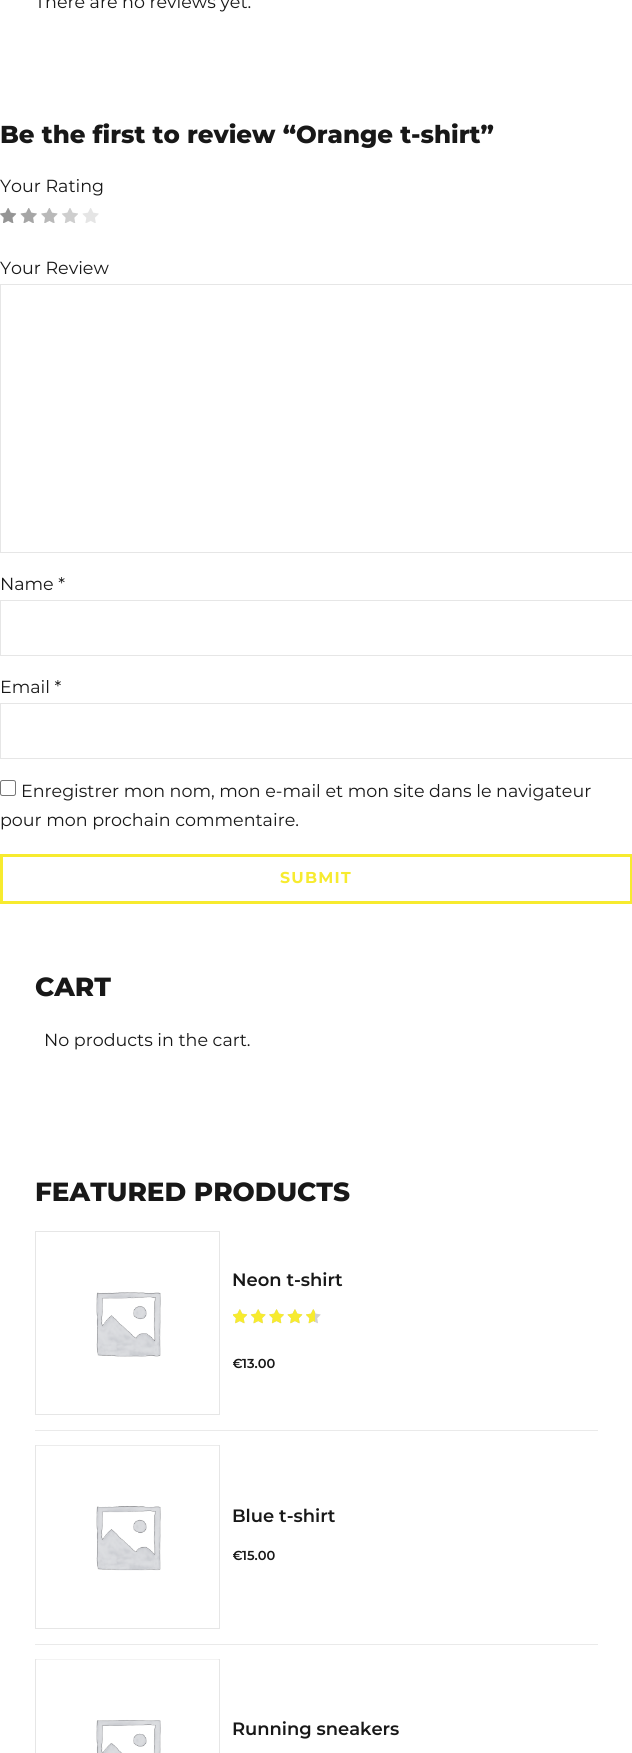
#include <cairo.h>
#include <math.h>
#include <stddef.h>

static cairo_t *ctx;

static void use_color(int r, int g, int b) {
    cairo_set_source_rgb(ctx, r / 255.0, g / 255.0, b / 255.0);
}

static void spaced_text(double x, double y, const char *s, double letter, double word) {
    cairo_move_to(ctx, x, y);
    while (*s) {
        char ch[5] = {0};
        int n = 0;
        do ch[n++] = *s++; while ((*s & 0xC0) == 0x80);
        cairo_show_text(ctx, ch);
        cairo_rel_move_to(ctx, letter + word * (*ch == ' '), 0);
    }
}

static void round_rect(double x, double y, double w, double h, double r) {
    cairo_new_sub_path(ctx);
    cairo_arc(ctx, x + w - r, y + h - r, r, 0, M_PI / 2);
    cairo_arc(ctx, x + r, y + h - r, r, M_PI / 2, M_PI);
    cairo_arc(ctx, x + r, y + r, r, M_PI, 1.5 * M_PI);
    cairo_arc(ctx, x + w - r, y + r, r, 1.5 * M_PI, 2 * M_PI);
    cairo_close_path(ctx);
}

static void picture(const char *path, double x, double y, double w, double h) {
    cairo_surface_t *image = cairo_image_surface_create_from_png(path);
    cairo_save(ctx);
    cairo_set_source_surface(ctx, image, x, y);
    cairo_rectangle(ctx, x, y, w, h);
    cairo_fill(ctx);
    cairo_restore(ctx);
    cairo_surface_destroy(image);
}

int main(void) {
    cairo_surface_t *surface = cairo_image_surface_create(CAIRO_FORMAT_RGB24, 632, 1753);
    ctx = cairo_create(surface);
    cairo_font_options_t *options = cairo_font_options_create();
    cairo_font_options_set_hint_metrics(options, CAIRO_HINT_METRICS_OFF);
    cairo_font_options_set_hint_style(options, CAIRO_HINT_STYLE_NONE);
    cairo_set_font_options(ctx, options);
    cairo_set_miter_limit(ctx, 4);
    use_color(255, 255, 255);
    cairo_paint(ctx);
    cairo_select_font_face(ctx, "Montserrat", CAIRO_FONT_SLANT_NORMAL, CAIRO_FONT_WEIGHT_NORMAL);
    cairo_set_font_size(ctx, 17.5);
    use_color(24, 24, 24);
    cairo_move_to(ctx, 35, 8);
    cairo_show_text(ctx, "There are no reviews yet.");
    cairo_select_font_face(ctx, "Montserrat ExtraBold", CAIRO_FONT_SLANT_NORMAL, CAIRO_FONT_WEIGHT_NORMAL);
    cairo_set_font_size(ctx, 24.5);
    cairo_move_to(ctx, 0, 143);
    cairo_show_text(ctx, "Be the first to review “Orange t-shirt”");
    cairo_select_font_face(ctx, "Montserrat", CAIRO_FONT_SLANT_NORMAL, CAIRO_FONT_WEIGHT_NORMAL);
    cairo_set_font_size(ctx, 17.5);
    cairo_move_to(ctx, 0, 192);
    cairo_show_text(ctx, "Your Rating");
    picture("img1.png", 0, 208, 99, 15);
    picture("img2.png", 0, 208, 78, 15);
    picture("img3.png", 0, 208, 58, 15);
    picture("img4.png", 0, 208, 37, 15);
    picture("img5.png", 0, 208, 16, 15);
    cairo_move_to(ctx, 0, 274);
    cairo_show_text(ctx, "Your Review");
    cairo_rectangle(ctx, 0.5, 284.5, 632, 268);
    use_color(230, 230, 230);
    cairo_set_line_width(ctx, 1);
    cairo_stroke(ctx);
    use_color(24, 24, 24);
    cairo_move_to(ctx, 0, 590);
    cairo_show_text(ctx, "Name *");
    cairo_rectangle(ctx, 0.5, 600.5, 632, 55);
    use_color(230, 230, 230);
    cairo_stroke(ctx);
    use_color(24, 24, 24);
    cairo_move_to(ctx, 0, 693);
    cairo_show_text(ctx, "Email *");
    cairo_rectangle(ctx, 0.5, 703.5, 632, 55);
    use_color(230, 230, 230);
    cairo_stroke(ctx);
    round_rect(0.5, 780.5, 15, 15, 2);
    use_color(118, 118, 118);
    cairo_stroke(ctx);
    use_color(24, 24, 24);
    cairo_move_to(ctx, 21, 797);
    cairo_show_text(ctx, "Enregistrer mon nom, mon e-mail et mon site dans le navigateur");
    cairo_move_to(ctx, 0, 826);
    cairo_show_text(ctx, "pour mon prochain commentaire.");
    cairo_rectangle(ctx, 1.5, 855.5, 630, 47);
    use_color(247, 235, 47);
    cairo_set_line_width(ctx, 3);
    cairo_stroke(ctx);
    cairo_select_font_face(ctx, "Montserrat", CAIRO_FONT_SLANT_NORMAL, CAIRO_FONT_WEIGHT_BOLD);
    cairo_set_font_size(ctx, 15.75);
    spaced_text(280, 883, "SUBMIT", 1.25, 0);
    cairo_select_font_face(ctx, "Montserrat ExtraBold", CAIRO_FONT_SLANT_NORMAL, CAIRO_FONT_WEIGHT_NORMAL);
    cairo_set_font_size(ctx, 26.25);
    use_color(24, 24, 24);
    cairo_move_to(ctx, 35, 996);
    cairo_show_text(ctx, "CART");
    cairo_select_font_face(ctx, "Montserrat", CAIRO_FONT_SLANT_NORMAL, CAIRO_FONT_WEIGHT_NORMAL);
    cairo_set_font_size(ctx, 17.5);
    cairo_move_to(ctx, 44, 1046);
    cairo_show_text(ctx, "No products in the cart.");
    cairo_select_font_face(ctx, "Montserrat ExtraBold", CAIRO_FONT_SLANT_NORMAL, CAIRO_FONT_WEIGHT_NORMAL);
    cairo_set_font_size(ctx, 26.25);
    cairo_move_to(ctx, 35, 1201);
    cairo_show_text(ctx, "FEATURED PRODUCTS");
    use_color(234, 234, 234);
    cairo_rectangle(ctx, 35, 1430, 563, 1);
    cairo_fill(ctx);
    cairo_rectangle(ctx, 35.5, 1231.5, 184, 183);
    use_color(230, 230, 230);
    cairo_set_line_width(ctx, 1);
    cairo_stroke(ctx);
    picture("img6.png", 96, 1292, 65, 65);
    cairo_select_font_face(ctx, "Montserrat SemiBold", CAIRO_FONT_SLANT_NORMAL, CAIRO_FONT_WEIGHT_NORMAL);
    cairo_set_font_size(ctx, 17.9);
    use_color(24, 24, 24);
    cairo_move_to(ctx, 232, 1286);
    cairo_show_text(ctx, "Neon t-shirt");
    picture("img7.png", 233, 1309, 88, 15);
    picture("img8.png", 233, 1309, 82, 15);
    cairo_save(ctx);
    cairo_rectangle(ctx, 233, 1268, 365, 112);
    cairo_clip(ctx);
    cairo_set_font_size(ctx, 13);
    cairo_move_to(ctx, 232, 1368);
    cairo_show_text(ctx, "€");
    cairo_restore(ctx);
    cairo_set_font_size(ctx, 13);
    cairo_move_to(ctx, 242, 1368);
    cairo_show_text(ctx, "13.00");
    use_color(234, 234, 234);
    cairo_rectangle(ctx, 35, 1644, 563, 1);
    cairo_fill(ctx);
    cairo_rectangle(ctx, 35.5, 1445.5, 184, 183);
    use_color(230, 230, 230);
    cairo_stroke(ctx);
    picture("img9.png", 36, 1445, 183, 126);
    cairo_set_font_size(ctx, 17.9);
    use_color(24, 24, 24);
    cairo_move_to(ctx, 232, 1522);
    cairo_show_text(ctx, "Blue t-shirt");
    cairo_save(ctx);
    cairo_rectangle(ctx, 233, 1503, 365, 68);
    cairo_clip(ctx);
    cairo_set_font_size(ctx, 13);
    cairo_move_to(ctx, 232, 1560);
    cairo_show_text(ctx, "€");
    cairo_restore(ctx);
    cairo_set_font_size(ctx, 13);
    cairo_move_to(ctx, 242, 1560);
    cairo_show_text(ctx, "15.00");
    cairo_rectangle(ctx, 35.5, 1659.5, 184, 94);
    use_color(230, 230, 230);
    cairo_stroke(ctx);
    picture("img10.png", 36, 1659, 183, 94);
    cairo_set_font_size(ctx, 17.9);
    use_color(24, 24, 24);
    cairo_move_to(ctx, 232, 1735);
    cairo_show_text(ctx, "Running sneakers");
    cairo_surface_write_to_png(surface, "result.png");
    cairo_font_options_destroy(options);
    cairo_destroy(ctx);
    cairo_surface_destroy(surface);
    return 0;
}
